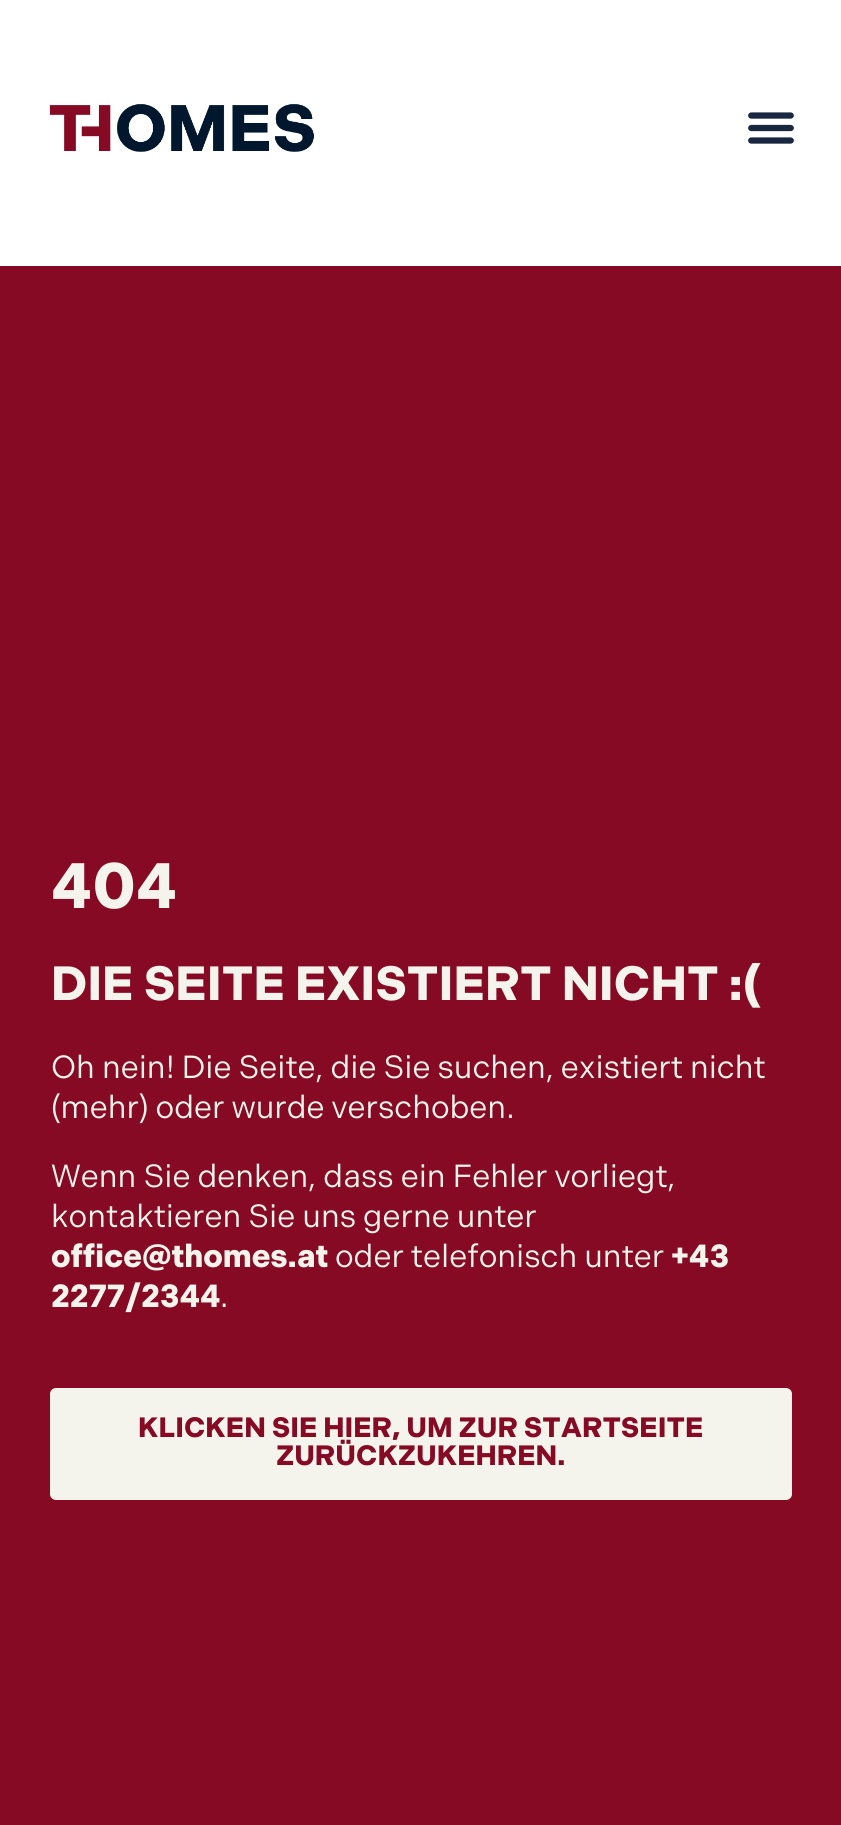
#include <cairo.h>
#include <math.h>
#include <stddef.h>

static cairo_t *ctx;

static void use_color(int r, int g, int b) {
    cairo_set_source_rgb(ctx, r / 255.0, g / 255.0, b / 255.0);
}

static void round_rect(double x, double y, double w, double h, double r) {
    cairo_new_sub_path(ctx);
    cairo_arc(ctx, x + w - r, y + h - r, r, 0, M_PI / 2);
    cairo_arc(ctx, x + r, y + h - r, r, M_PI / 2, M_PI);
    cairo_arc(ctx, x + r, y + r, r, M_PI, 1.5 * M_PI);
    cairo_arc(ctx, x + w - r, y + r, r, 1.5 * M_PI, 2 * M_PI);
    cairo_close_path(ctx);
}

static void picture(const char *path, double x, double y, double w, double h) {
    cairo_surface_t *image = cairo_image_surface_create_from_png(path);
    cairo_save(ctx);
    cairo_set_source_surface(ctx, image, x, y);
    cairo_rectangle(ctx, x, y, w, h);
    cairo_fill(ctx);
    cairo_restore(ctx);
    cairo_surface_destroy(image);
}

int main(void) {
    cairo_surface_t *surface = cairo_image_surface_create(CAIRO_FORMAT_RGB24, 841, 1825);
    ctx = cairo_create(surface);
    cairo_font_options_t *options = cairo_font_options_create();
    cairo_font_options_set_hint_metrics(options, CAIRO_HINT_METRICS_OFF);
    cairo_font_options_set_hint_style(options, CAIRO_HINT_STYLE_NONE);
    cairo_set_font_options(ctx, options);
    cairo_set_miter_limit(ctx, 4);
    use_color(255, 255, 255);
    cairo_paint(ctx);
    picture("img1.png", 49, 104, 265, 48);
    picture("img2.png", 748, 112, 46, 32);
    use_color(134, 10, 36);
    cairo_rectangle(ctx, 0, 266, 841, 1559);
    cairo_fill(ctx);
    cairo_select_font_face(ctx, "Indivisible", CAIRO_FONT_SLANT_NORMAL, CAIRO_FONT_WEIGHT_BOLD);
    cairo_set_font_size(ctx, 64);
    use_color(244, 244, 237);
    cairo_move_to(ctx, 51, 908);
    cairo_show_text(ctx, "404");
    cairo_set_font_size(ctx, 48);
    cairo_move_to(ctx, 51, 1000);
    cairo_show_text(ctx, "DIE SEITE EXISTIERT NICHT :(");
    cairo_select_font_face(ctx, "Indivisible", CAIRO_FONT_SLANT_NORMAL, CAIRO_FONT_WEIGHT_NORMAL);
    cairo_set_font_size(ctx, 32);
    cairo_move_to(ctx, 51, 1078);
    cairo_show_text(ctx, "Oh nein! Die Seite, die Sie suchen, existiert nicht");
    cairo_move_to(ctx, 51, 1118);
    cairo_show_text(ctx, "(mehr) oder wurde verschoben.");
    cairo_move_to(ctx, 51, 1187);
    cairo_show_text(ctx, "Wenn Sie denken, dass ein Fehler vorliegt,");
    cairo_move_to(ctx, 51, 1227);
    cairo_show_text(ctx, "kontaktieren Sie uns gerne unter");
    cairo_select_font_face(ctx, "Indivisible", CAIRO_FONT_SLANT_NORMAL, CAIRO_FONT_WEIGHT_BOLD);
    cairo_move_to(ctx, 51, 1267);
    cairo_show_text(ctx, "office@thomes.at");
    cairo_select_font_face(ctx, "Indivisible", CAIRO_FONT_SLANT_NORMAL, CAIRO_FONT_WEIGHT_NORMAL);
    cairo_move_to(ctx, 335, 1267);
    cairo_show_text(ctx, "oder telefonisch unter");
    cairo_select_font_face(ctx, "Indivisible", CAIRO_FONT_SLANT_NORMAL, CAIRO_FONT_WEIGHT_BOLD);
    cairo_move_to(ctx, 671, 1267);
    cairo_show_text(ctx, "+43");
    cairo_move_to(ctx, 51, 1307);
    cairo_show_text(ctx, "2277/2344");
    cairo_select_font_face(ctx, "Indivisible", CAIRO_FONT_SLANT_NORMAL, CAIRO_FONT_WEIGHT_NORMAL);
    cairo_move_to(ctx, 220, 1307);
    cairo_show_text(ctx, ".");
    round_rect(50, 1388, 742, 112, 6);
    cairo_fill(ctx);
    cairo_select_font_face(ctx, "Indivisible", CAIRO_FONT_SLANT_NORMAL, CAIRO_FONT_WEIGHT_BOLD);
    cairo_set_font_size(ctx, 28);
    use_color(134, 10, 36);
    cairo_move_to(ctx, 138, 1437);
    cairo_show_text(ctx, "KLICKEN SIE HIER, UM ZUR STARTSEITE");
    cairo_move_to(ctx, 276, 1465);
    cairo_show_text(ctx, "ZURÜCKZUKEHREN.");
    cairo_surface_write_to_png(surface, "result.png");
    cairo_font_options_destroy(options);
    cairo_destroy(ctx);
    cairo_surface_destroy(surface);
    return 0;
}
